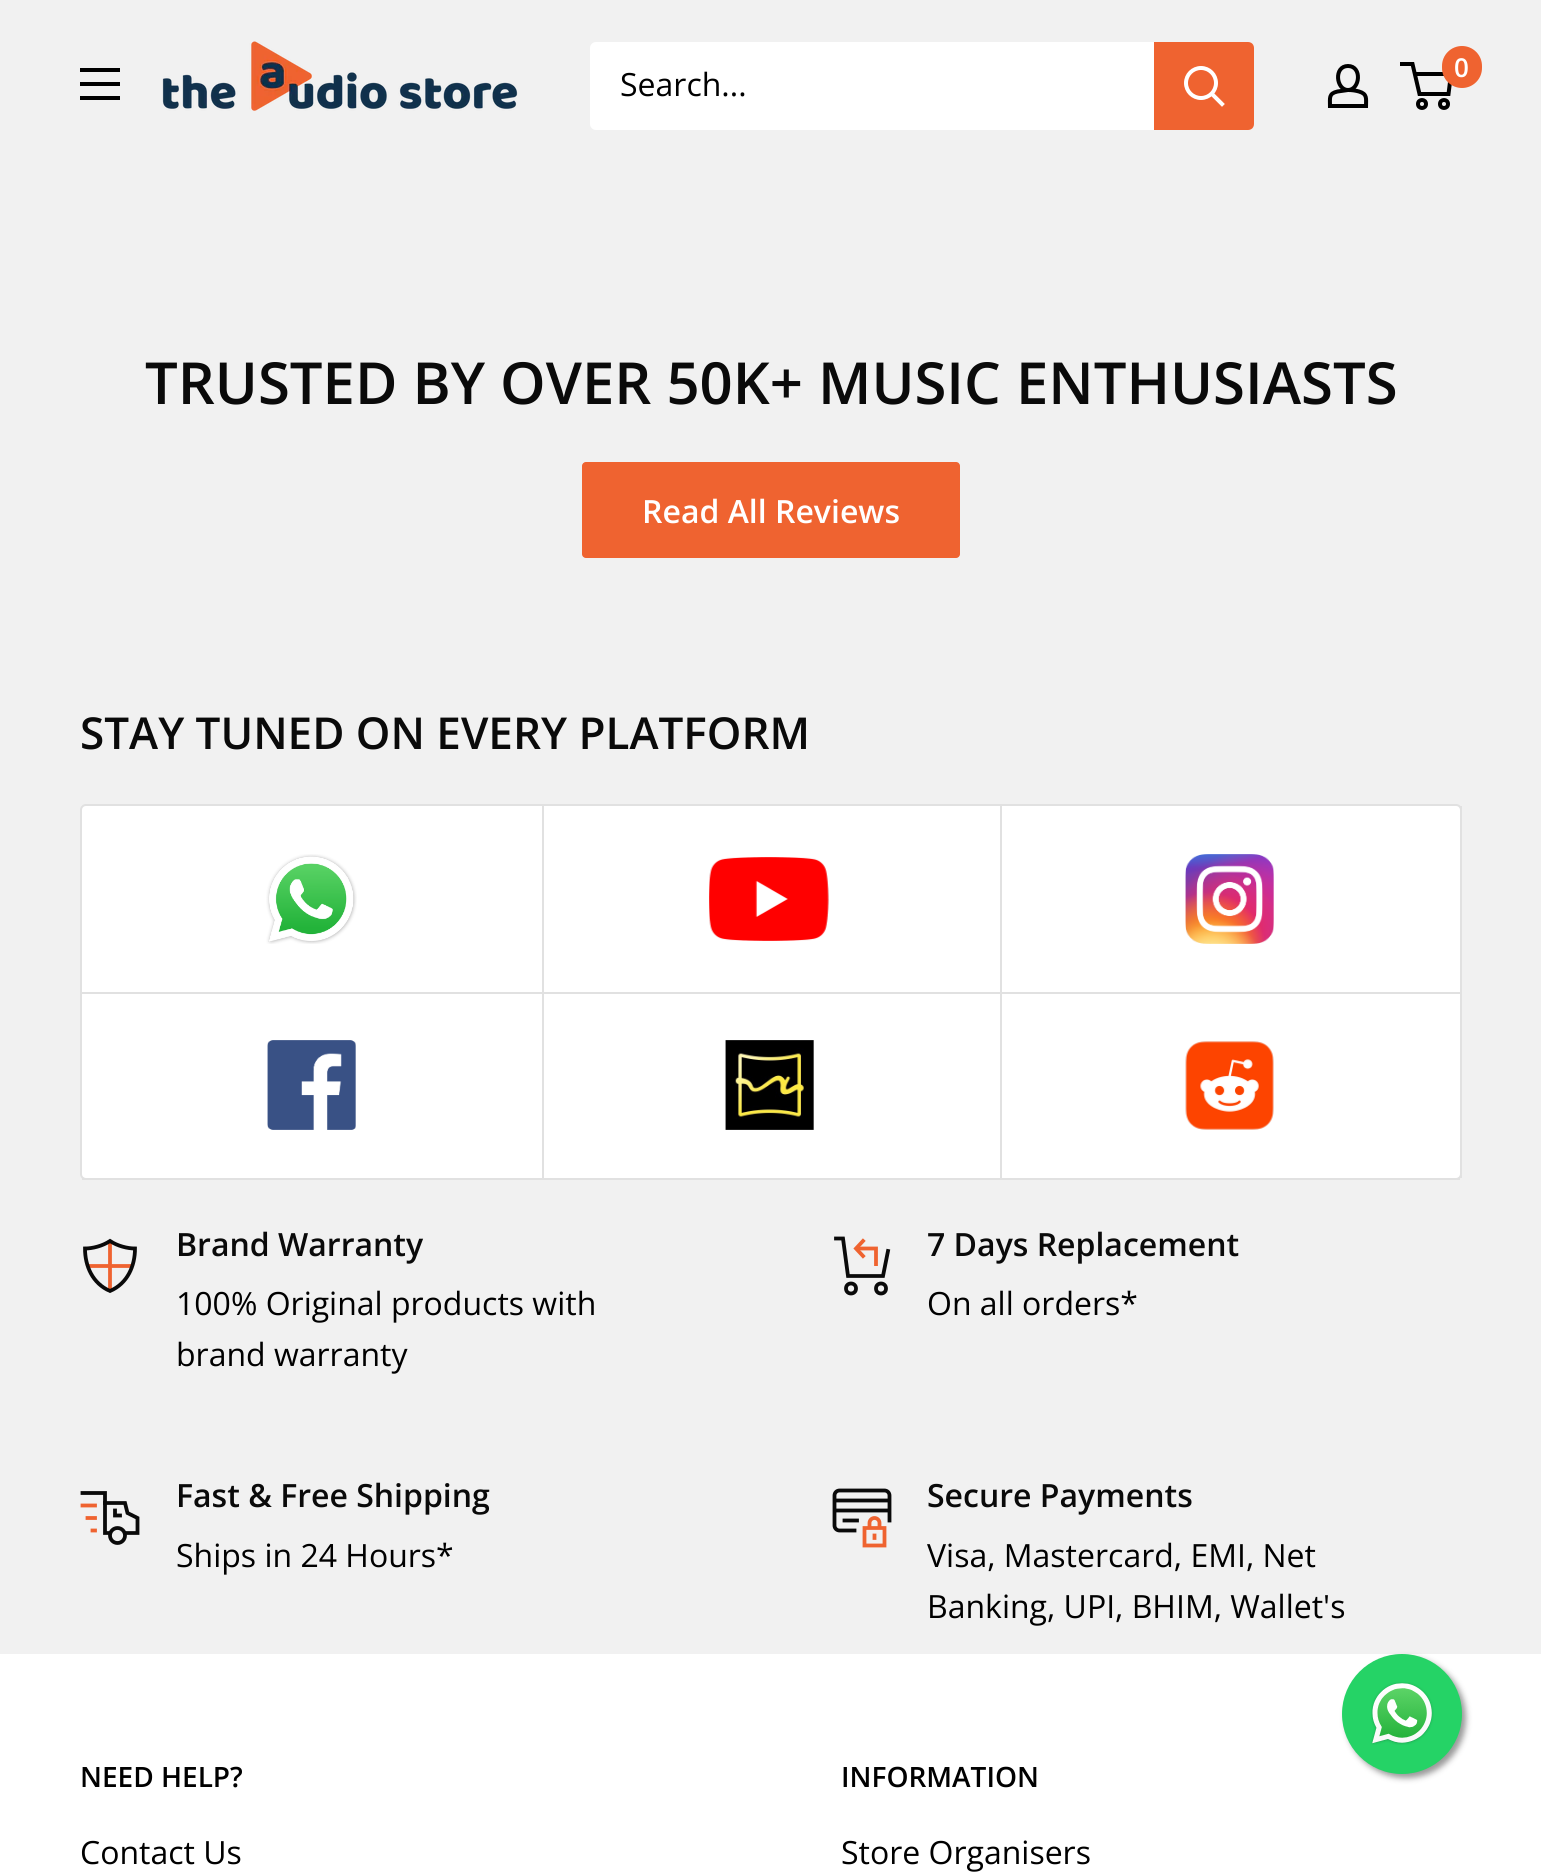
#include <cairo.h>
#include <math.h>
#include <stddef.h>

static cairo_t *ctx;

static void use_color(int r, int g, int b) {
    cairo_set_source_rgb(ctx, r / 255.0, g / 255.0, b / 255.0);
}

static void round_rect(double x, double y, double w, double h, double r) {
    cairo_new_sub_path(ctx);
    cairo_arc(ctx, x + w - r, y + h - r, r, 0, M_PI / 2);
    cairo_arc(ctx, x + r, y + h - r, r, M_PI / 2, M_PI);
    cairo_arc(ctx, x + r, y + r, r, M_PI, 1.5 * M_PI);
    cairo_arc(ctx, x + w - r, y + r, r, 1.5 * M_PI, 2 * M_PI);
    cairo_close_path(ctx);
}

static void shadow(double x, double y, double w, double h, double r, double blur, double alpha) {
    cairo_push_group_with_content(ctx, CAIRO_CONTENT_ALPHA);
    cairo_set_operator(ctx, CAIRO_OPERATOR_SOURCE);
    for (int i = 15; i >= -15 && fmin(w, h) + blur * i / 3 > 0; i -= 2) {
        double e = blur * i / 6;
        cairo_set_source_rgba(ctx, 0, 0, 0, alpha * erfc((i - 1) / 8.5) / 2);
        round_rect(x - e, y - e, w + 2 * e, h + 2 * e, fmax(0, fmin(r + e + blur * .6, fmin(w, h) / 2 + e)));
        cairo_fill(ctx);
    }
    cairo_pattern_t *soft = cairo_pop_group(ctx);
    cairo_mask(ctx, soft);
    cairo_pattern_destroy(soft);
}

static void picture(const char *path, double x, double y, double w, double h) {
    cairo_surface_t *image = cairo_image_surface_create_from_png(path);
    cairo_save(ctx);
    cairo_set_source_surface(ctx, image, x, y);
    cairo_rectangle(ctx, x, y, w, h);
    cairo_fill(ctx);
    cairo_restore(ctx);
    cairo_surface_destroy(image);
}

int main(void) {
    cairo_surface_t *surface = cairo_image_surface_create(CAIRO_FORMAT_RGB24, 1541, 1873);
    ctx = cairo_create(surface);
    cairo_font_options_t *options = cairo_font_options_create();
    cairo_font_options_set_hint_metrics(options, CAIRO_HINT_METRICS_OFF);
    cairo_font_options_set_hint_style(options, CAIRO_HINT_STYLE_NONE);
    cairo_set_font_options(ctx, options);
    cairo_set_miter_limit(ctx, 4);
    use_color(241, 241, 241);
    cairo_paint(ctx);
    use_color(0, 0, 0);
    cairo_set_fill_rule(ctx, CAIRO_FILL_RULE_EVEN_ODD);
    cairo_new_path(ctx);
    cairo_move_to(ctx, 80, 96);
    cairo_line_to(ctx, 120, 96);
    cairo_line_to(ctx, 120, 100);
    cairo_line_to(ctx, 80, 100);
    cairo_close_path(ctx);
    cairo_move_to(ctx, 80, 68);
    cairo_line_to(ctx, 120, 68);
    cairo_line_to(ctx, 120, 72);
    cairo_line_to(ctx, 80, 72);
    cairo_close_path(ctx);
    cairo_move_to(ctx, 80, 82);
    cairo_line_to(ctx, 120, 82);
    cairo_line_to(ctx, 120, 86);
    cairo_line_to(ctx, 80, 86);
    cairo_close_path(ctx);
    cairo_fill(ctx);
    picture("img1.png", 162, 41, 356, 70);
    use_color(255, 255, 255);
    round_rect(590, 42, 664, 88, 6);
    cairo_fill(ctx);
    cairo_select_font_face(ctx, "Open Sans", CAIRO_FONT_SLANT_NORMAL, CAIRO_FONT_WEIGHT_NORMAL);
    cairo_set_font_size(ctx, 32);
    use_color(0, 0, 0);
    cairo_move_to(ctx, 620, 96);
    cairo_show_text(ctx, "Search...");
    use_color(239, 99, 48);
    cairo_new_path(ctx);
    cairo_move_to(ctx, 1154, 42);
    cairo_line_to(ctx, 1248, 42);
    cairo_curve_to(ctx, 1251.5, 42, 1254, 44.5, 1254, 48);
    cairo_line_to(ctx, 1254, 124);
    cairo_curve_to(ctx, 1254, 127.5, 1251.5, 130, 1248, 130);
    cairo_line_to(ctx, 1154, 130);
    cairo_close_path(ctx);
    cairo_fill(ctx);
    cairo_new_path(ctx);
    cairo_move_to(ctx, 1222, 104);
    cairo_line_to(ctx, 1212, 94);
    use_color(255, 255, 255);
    cairo_set_line_width(ctx, 4);
    cairo_set_line_cap(ctx, CAIRO_LINE_CAP_SQUARE);
    cairo_stroke(ctx);
    cairo_arc(ctx, 1201, 83, 15, 0, 2 * M_PI);
    cairo_set_line_cap(ctx, CAIRO_LINE_CAP_BUTT);
    cairo_stroke(ctx);
    cairo_new_path(ctx);
    cairo_move_to(ctx, 1348, 90);
    cairo_curve_to(ctx, 1352, 90, 1355.5, 90.5, 1359, 91.5);
    cairo_curve_to(ctx, 1367.5, 94, 1366, 98.5, 1366, 106);
    cairo_line_to(ctx, 1330, 106);
    cairo_curve_to(ctx, 1330, 98, 1328.5, 93.5, 1337.5, 91.5);
    cairo_close_path(ctx);
    cairo_move_to(ctx, 1348, 90);
    cairo_curve_to(ctx, 1336, 90, 1333.5, 66, 1348, 66);
    cairo_curve_to(ctx, 1362.5, 66, 1360, 90, 1348, 90);
    cairo_close_path(ctx);
    use_color(0, 0, 0);
    cairo_stroke(ctx);
    cairo_arc(ctx, 1422, 104, 4, 0, 2 * M_PI);
    cairo_stroke(ctx);
    cairo_arc(ctx, 1444, 104, 4, 0, 2 * M_PI);
    cairo_stroke(ctx);
    cairo_new_path(ctx);
    cairo_move_to(ctx, 1414.5, 74);
    cairo_line_to(ctx, 1451, 74);
    cairo_line_to(ctx, 1448.5, 94);
    cairo_line_to(ctx, 1419.5, 94);
    cairo_line_to(ctx, 1412.5, 64);
    cairo_line_to(ctx, 1400, 64);
    cairo_stroke(ctx);
    use_color(239, 99, 48);
    round_rect(1442, 46, 40, 42, 20);
    cairo_fill(ctx);
    cairo_select_font_face(ctx, "Open Sans SemiBold", CAIRO_FONT_SLANT_NORMAL, CAIRO_FONT_WEIGHT_NORMAL);
    cairo_set_font_size(ctx, 26);
    use_color(255, 255, 255);
    cairo_move_to(ctx, 1454, 77);
    cairo_show_text(ctx, "0");
    cairo_set_font_size(ctx, 58);
    use_color(10, 10, 10);
    cairo_move_to(ctx, 145, 404);
    cairo_show_text(ctx, "TRUSTED BY OVER 50K+ MUSIC ENTHUSIASTS");
    use_color(239, 99, 48);
    round_rect(582, 462, 378, 96, 4);
    cairo_fill(ctx);
    cairo_set_font_size(ctx, 32);
    use_color(255, 255, 255);
    cairo_move_to(ctx, 642, 523);
    cairo_show_text(ctx, "Read All Reviews");
    cairo_set_font_size(ctx, 44);
    use_color(10, 10, 10);
    cairo_move_to(ctx, 80, 749);
    cairo_show_text(ctx, "STAY TUNED ON EVERY PLATFORM");
    use_color(255, 255, 255);
    round_rect(81, 805, 1380, 374, 5);
    cairo_fill_preserve(ctx);
    use_color(225, 225, 225);
    cairo_set_line_width(ctx, 2);
    cairo_stroke(ctx);
    cairo_rectangle(ctx, 82, 992, 1378, 2);
    cairo_fill(ctx);
    cairo_rectangle(ctx, 542, 806, 2, 372);
    cairo_fill(ctx);
    picture("img2.png", 266, 854, 91, 90);
    cairo_rectangle(ctx, 1000, 806, 2, 372);
    cairo_fill(ctx);
    picture("img3.png", 709, 857, 120, 84);
    cairo_rectangle(ctx, 1460, 806, 2, 3);
    cairo_fill(ctx);
    picture("img4.png", 1185, 854, 89, 90);
    cairo_rectangle(ctx, 82, 1178, 3, 2);
    cairo_fill(ctx);
    picture("img5.png", 267, 1040, 89, 90);
    picture("img6.png", 725, 1040, 89, 90);
    cairo_rectangle(ctx, 1457, 1178, 3, 2);
    cairo_fill(ctx);
    cairo_rectangle(ctx, 1460, 1175, 2, 3);
    cairo_fill(ctx);
    picture("img7.png", 1185, 1041, 89, 89);
    cairo_new_path(ctx);
    cairo_move_to(ctx, 110, 1241);
    cairo_line_to(ctx, 110, 1291);
    cairo_move_to(ctx, 132.5, 1266);
    cairo_line_to(ctx, 87.5, 1266);
    use_color(239, 99, 48);
    cairo_set_line_width(ctx, 3.8);
    cairo_stroke(ctx);
    cairo_new_path(ctx);
    cairo_move_to(ctx, 110, 1241);
    cairo_curve_to(ctx, 102.5, 1246, 92.5, 1248.5, 85, 1248.5);
    cairo_curve_to(ctx, 85, 1266, 92.5, 1283.5, 110, 1291);
    cairo_curve_to(ctx, 127.5, 1283.5, 135, 1266, 135, 1248.5);
    cairo_curve_to(ctx, 127.5, 1248.5, 117.5, 1246, 110, 1241);
    cairo_close_path(ctx);
    use_color(10, 10, 10);
    cairo_set_line_cap(ctx, CAIRO_LINE_CAP_SQUARE);
    cairo_stroke(ctx);
    cairo_set_font_size(ctx, 32);
    cairo_move_to(ctx, 176, 1256);
    cairo_show_text(ctx, "Brand Warranty");
    cairo_select_font_face(ctx, "Open Sans", CAIRO_FONT_SLANT_NORMAL, CAIRO_FONT_WEIGHT_NORMAL);
    use_color(0, 0, 0);
    cairo_move_to(ctx, 176, 1315);
    cairo_show_text(ctx, "100% Original products with");
    cairo_move_to(ctx, 176, 1366);
    cairo_show_text(ctx, "brand warranty");
    cairo_new_path(ctx);
    cairo_move_to(ctx, 856, 1248.5);
    cairo_line_to(ctx, 876, 1248.5);
    cairo_line_to(ctx, 876, 1266);
    use_color(239, 99, 48);
    cairo_set_line_cap(ctx, CAIRO_LINE_CAP_BUTT);
    cairo_stroke(ctx);
    cairo_new_path(ctx);
    cairo_move_to(ctx, 863, 1256);
    cairo_line_to(ctx, 856, 1248.5);
    cairo_line_to(ctx, 863, 1241);
    cairo_set_line_cap(ctx, CAIRO_LINE_CAP_SQUARE);
    cairo_stroke(ctx);
    cairo_new_path(ctx);
    cairo_move_to(ctx, 888, 1251);
    cairo_line_to(ctx, 883, 1276);
    cairo_line_to(ctx, 848, 1276);
    cairo_line_to(ctx, 843, 1238.5);
    cairo_line_to(ctx, 836, 1238.5);
    use_color(10, 10, 10);
    cairo_stroke(ctx);
    cairo_arc(ctx, 851, 1288.5, 5, 0, 2 * M_PI);
    cairo_set_line_cap(ctx, CAIRO_LINE_CAP_BUTT);
    cairo_stroke(ctx);
    cairo_arc(ctx, 881, 1288.5, 5, 0, 2 * M_PI);
    cairo_stroke(ctx);
    cairo_select_font_face(ctx, "Open Sans SemiBold", CAIRO_FONT_SLANT_NORMAL, CAIRO_FONT_WEIGHT_NORMAL);
    cairo_move_to(ctx, 927, 1256);
    cairo_show_text(ctx, "7 Days Replacement");
    cairo_select_font_face(ctx, "Open Sans", CAIRO_FONT_SLANT_NORMAL, CAIRO_FONT_WEIGHT_NORMAL);
    use_color(0, 0, 0);
    cairo_move_to(ctx, 927, 1315);
    cairo_show_text(ctx, "On all orders*");
    picture("img8.png", 80, 1491, 60, 54);
    cairo_select_font_face(ctx, "Open Sans SemiBold", CAIRO_FONT_SLANT_NORMAL, CAIRO_FONT_WEIGHT_NORMAL);
    use_color(10, 10, 10);
    cairo_move_to(ctx, 176, 1507);
    cairo_show_text(ctx, "Fast & Free Shipping");
    cairo_select_font_face(ctx, "Open Sans", CAIRO_FONT_SLANT_NORMAL, CAIRO_FONT_WEIGHT_NORMAL);
    use_color(0, 0, 0);
    cairo_move_to(ctx, 176, 1567);
    cairo_show_text(ctx, "Ships in 24 Hours*");
    picture("img9.png", 832, 1488, 60, 60);
    cairo_select_font_face(ctx, "Open Sans SemiBold", CAIRO_FONT_SLANT_NORMAL, CAIRO_FONT_WEIGHT_NORMAL);
    use_color(10, 10, 10);
    cairo_move_to(ctx, 927, 1507);
    cairo_show_text(ctx, "Secure Payments");
    cairo_select_font_face(ctx, "Open Sans", CAIRO_FONT_SLANT_NORMAL, CAIRO_FONT_WEIGHT_NORMAL);
    use_color(0, 0, 0);
    cairo_move_to(ctx, 927, 1567);
    cairo_show_text(ctx, "Visa, Mastercard, EMI, Net");
    cairo_move_to(ctx, 927, 1618);
    cairo_show_text(ctx, "Banking, UPI, BHIM, Wallet's");
    use_color(255, 255, 255);
    cairo_rectangle(ctx, 0, 1654, 1541, 219);
    cairo_fill(ctx);
    use_color(153, 153, 153);
    shadow(1346, 1658, 120, 120, 60, 3, 1);
    use_color(37, 211, 102);
    cairo_arc(ctx, 1402, 1714, 60, 0, 2 * M_PI);
    cairo_fill(ctx);
    picture("img10.png", 1371, 1682, 63, 63);
    cairo_select_font_face(ctx, "Open Sans SemiBold", CAIRO_FONT_SLANT_NORMAL, CAIRO_FONT_WEIGHT_NORMAL);
    cairo_set_font_size(ctx, 28);
    use_color(0, 0, 0);
    cairo_move_to(ctx, 80, 1787);
    cairo_show_text(ctx, "NEED HELP?");
    cairo_select_font_face(ctx, "Open Sans", CAIRO_FONT_SLANT_NORMAL, CAIRO_FONT_WEIGHT_NORMAL);
    cairo_set_font_size(ctx, 32);
    cairo_move_to(ctx, 80, 1864);
    cairo_show_text(ctx, "Contact Us");
    cairo_select_font_face(ctx, "Open Sans SemiBold", CAIRO_FONT_SLANT_NORMAL, CAIRO_FONT_WEIGHT_NORMAL);
    cairo_set_font_size(ctx, 28);
    cairo_move_to(ctx, 841, 1787);
    cairo_show_text(ctx, "INFORMATION");
    cairo_select_font_face(ctx, "Open Sans", CAIRO_FONT_SLANT_NORMAL, CAIRO_FONT_WEIGHT_NORMAL);
    cairo_set_font_size(ctx, 32);
    cairo_move_to(ctx, 841, 1864);
    cairo_show_text(ctx, "Store Organisers");
    cairo_surface_write_to_png(surface, "result.png");
    cairo_font_options_destroy(options);
    cairo_destroy(ctx);
    cairo_surface_destroy(surface);
    return 0;
}
